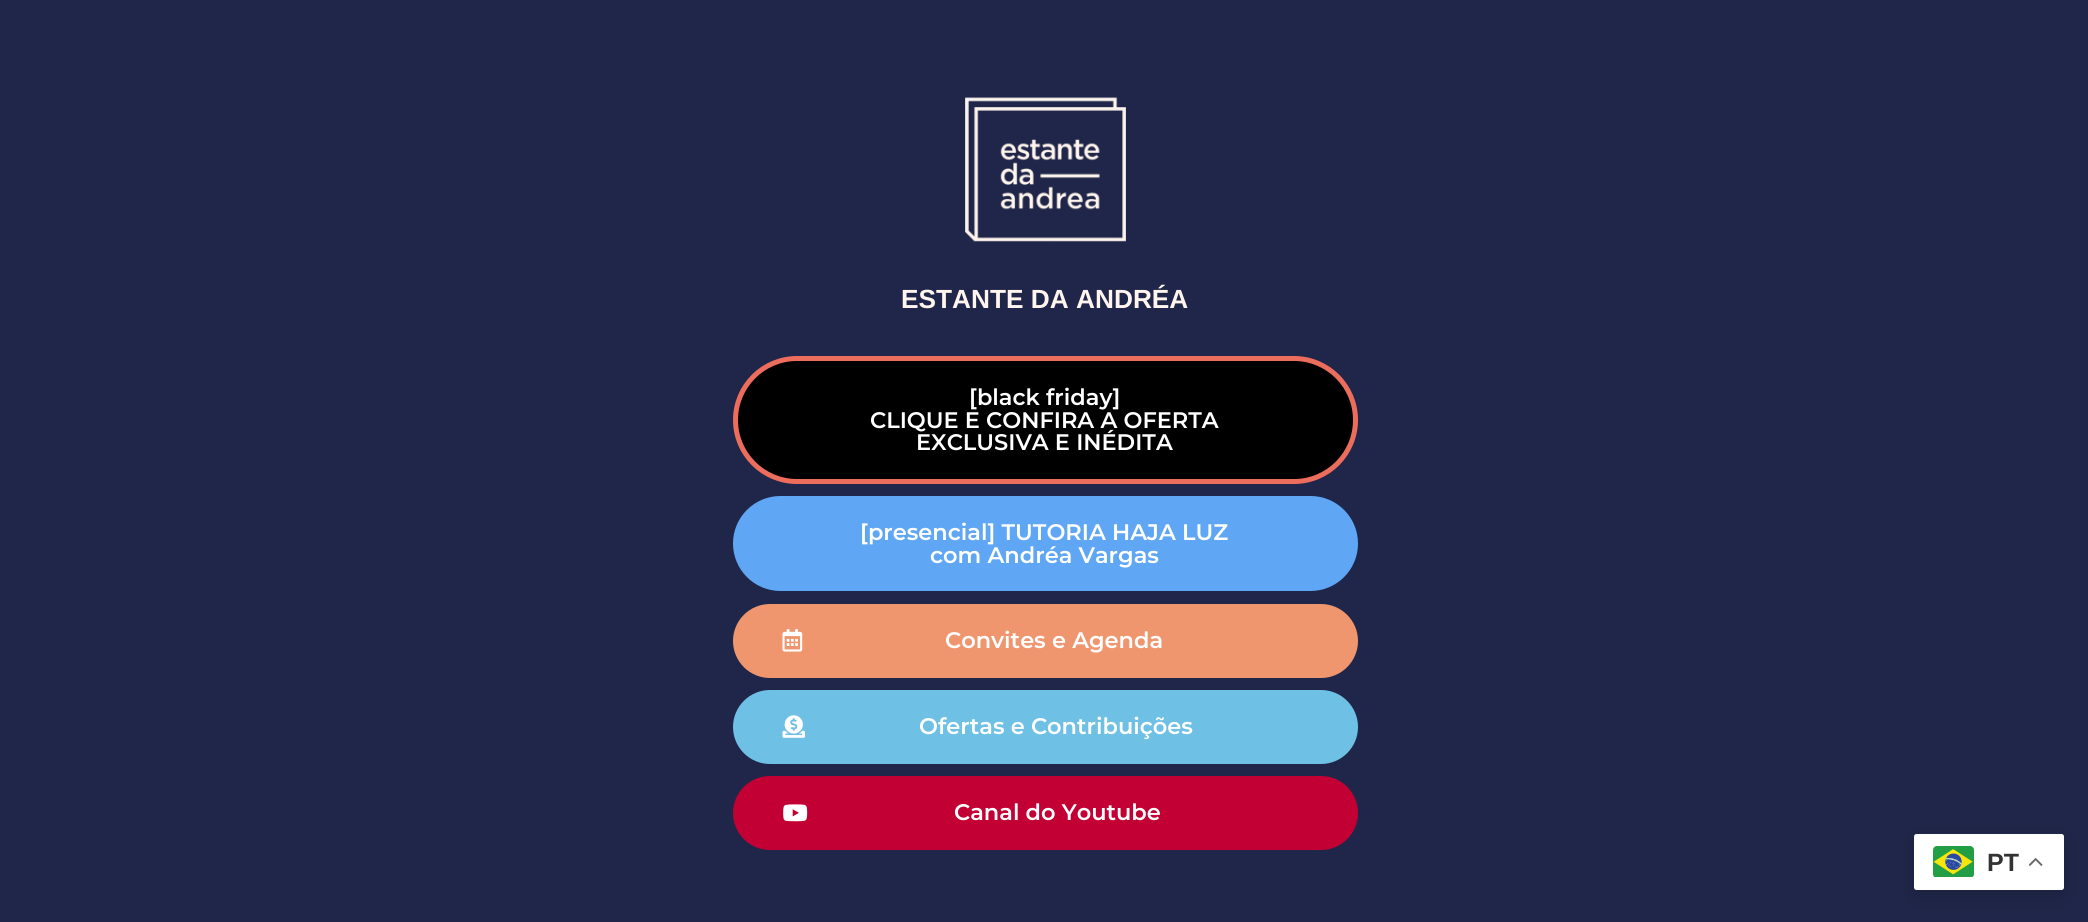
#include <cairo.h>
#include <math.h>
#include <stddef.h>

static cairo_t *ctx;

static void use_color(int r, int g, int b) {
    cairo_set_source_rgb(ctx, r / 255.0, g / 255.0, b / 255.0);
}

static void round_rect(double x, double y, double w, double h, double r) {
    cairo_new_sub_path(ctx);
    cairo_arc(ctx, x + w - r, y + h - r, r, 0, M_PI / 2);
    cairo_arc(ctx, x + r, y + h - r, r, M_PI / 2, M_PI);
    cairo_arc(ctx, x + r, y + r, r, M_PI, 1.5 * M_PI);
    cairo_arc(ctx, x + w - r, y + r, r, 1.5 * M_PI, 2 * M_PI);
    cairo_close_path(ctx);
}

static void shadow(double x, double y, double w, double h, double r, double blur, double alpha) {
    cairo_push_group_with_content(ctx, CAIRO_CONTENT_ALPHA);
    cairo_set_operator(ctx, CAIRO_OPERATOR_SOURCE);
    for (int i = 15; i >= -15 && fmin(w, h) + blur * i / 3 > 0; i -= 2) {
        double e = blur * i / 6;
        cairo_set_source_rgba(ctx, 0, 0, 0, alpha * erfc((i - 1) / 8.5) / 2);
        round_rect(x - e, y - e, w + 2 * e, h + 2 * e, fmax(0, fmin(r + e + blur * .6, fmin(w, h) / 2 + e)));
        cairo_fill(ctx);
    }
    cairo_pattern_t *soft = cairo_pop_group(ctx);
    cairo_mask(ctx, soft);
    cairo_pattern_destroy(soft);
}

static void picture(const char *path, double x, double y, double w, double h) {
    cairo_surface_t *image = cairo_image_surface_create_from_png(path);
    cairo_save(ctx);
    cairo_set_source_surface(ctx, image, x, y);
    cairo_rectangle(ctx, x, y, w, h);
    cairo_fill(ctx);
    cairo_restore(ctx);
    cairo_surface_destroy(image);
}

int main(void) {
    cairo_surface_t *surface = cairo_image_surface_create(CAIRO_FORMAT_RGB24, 2088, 922);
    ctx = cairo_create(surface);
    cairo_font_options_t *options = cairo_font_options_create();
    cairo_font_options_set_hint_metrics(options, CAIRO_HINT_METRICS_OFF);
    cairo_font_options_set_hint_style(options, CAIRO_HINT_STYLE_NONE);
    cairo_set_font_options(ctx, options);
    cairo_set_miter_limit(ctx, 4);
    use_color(31, 38, 73);
    cairo_paint(ctx);
    picture("img1.png", 965, 97, 161, 145);
    cairo_select_font_face(ctx, "Liberation Sans", CAIRO_FONT_SLANT_NORMAL, CAIRO_FONT_WEIGHT_BOLD);
    cairo_set_font_size(ctx, 26.25);
    use_color(255, 245, 238);
    cairo_move_to(ctx, 901, 308);
    cairo_show_text(ctx, "ESTANTE DA ANDRÉA");
    use_color(0, 0, 0);
    round_rect(735.5, 358.5, 620, 123, 61.5);
    cairo_fill_preserve(ctx);
    use_color(237, 109, 92);
    cairo_set_line_width(ctx, 5);
    cairo_stroke(ctx);
    cairo_select_font_face(ctx, "Montserrat SemiBold", CAIRO_FONT_SLANT_NORMAL, CAIRO_FONT_WEIGHT_NORMAL);
    cairo_set_font_size(ctx, 22.5);
    use_color(255, 255, 255);
    cairo_move_to(ctx, 969, 405);
    cairo_show_text(ctx, "[black friday]");
    cairo_move_to(ctx, 870, 428);
    cairo_show_text(ctx, "CLIQUE E CONFIRA A OFERTA");
    cairo_move_to(ctx, 916, 450);
    cairo_show_text(ctx, "EXCLUSIVA E INÉDITA");
    use_color(95, 167, 244);
    round_rect(733, 496, 625, 95, 47.5);
    cairo_fill(ctx);
    use_color(255, 255, 255);
    cairo_move_to(ctx, 860, 540);
    cairo_show_text(ctx, "[presencial] TUTORIA HAJA LUZ");
    cairo_move_to(ctx, 930, 563);
    cairo_show_text(ctx, "com Andréa Vargas");
    use_color(239, 150, 111);
    round_rect(733, 604, 625, 74, 37);
    cairo_fill(ctx);
    picture("img2.png", 782, 629, 21, 23);
    use_color(255, 255, 255);
    cairo_move_to(ctx, 945, 648);
    cairo_show_text(ctx, "Convites e Agenda");
    use_color(110, 193, 228);
    round_rect(733, 690, 625, 74, 37);
    cairo_fill(ctx);
    picture("img3.png", 782, 715, 23, 23);
    use_color(255, 255, 255);
    cairo_move_to(ctx, 919, 734);
    cairo_show_text(ctx, "Ofertas e Contribuições");
    use_color(195, 0, 51);
    round_rect(733, 776, 625, 74, 37);
    cairo_fill(ctx);
    picture("img4.png", 783, 804, 25, 18);
    use_color(255, 255, 255);
    cairo_move_to(ctx, 954, 820);
    cairo_show_text(ctx, "Canal do Youtube");
    use_color(0, 0, 0);
    shadow(1914, 840, 150, 56, 2.5, 9.5, 0.15);
    use_color(255, 255, 255);
    round_rect(1914, 834, 150, 56, 2.5);
    cairo_fill(ctx);
    picture("img5.png", 1933, 846, 41, 31);
    cairo_select_font_face(ctx, "Liberation Sans", CAIRO_FONT_SLANT_NORMAL, CAIRO_FONT_WEIGHT_BOLD);
    cairo_set_font_size(ctx, 25);
    use_color(51, 51, 51);
    cairo_move_to(ctx, 1987, 871);
    cairo_show_text(ctx, "PT");
    picture("img6.png", 2029, 858, 14, 8);
    cairo_surface_write_to_png(surface, "result.png");
    cairo_font_options_destroy(options);
    cairo_destroy(ctx);
    cairo_surface_destroy(surface);
    return 0;
}
